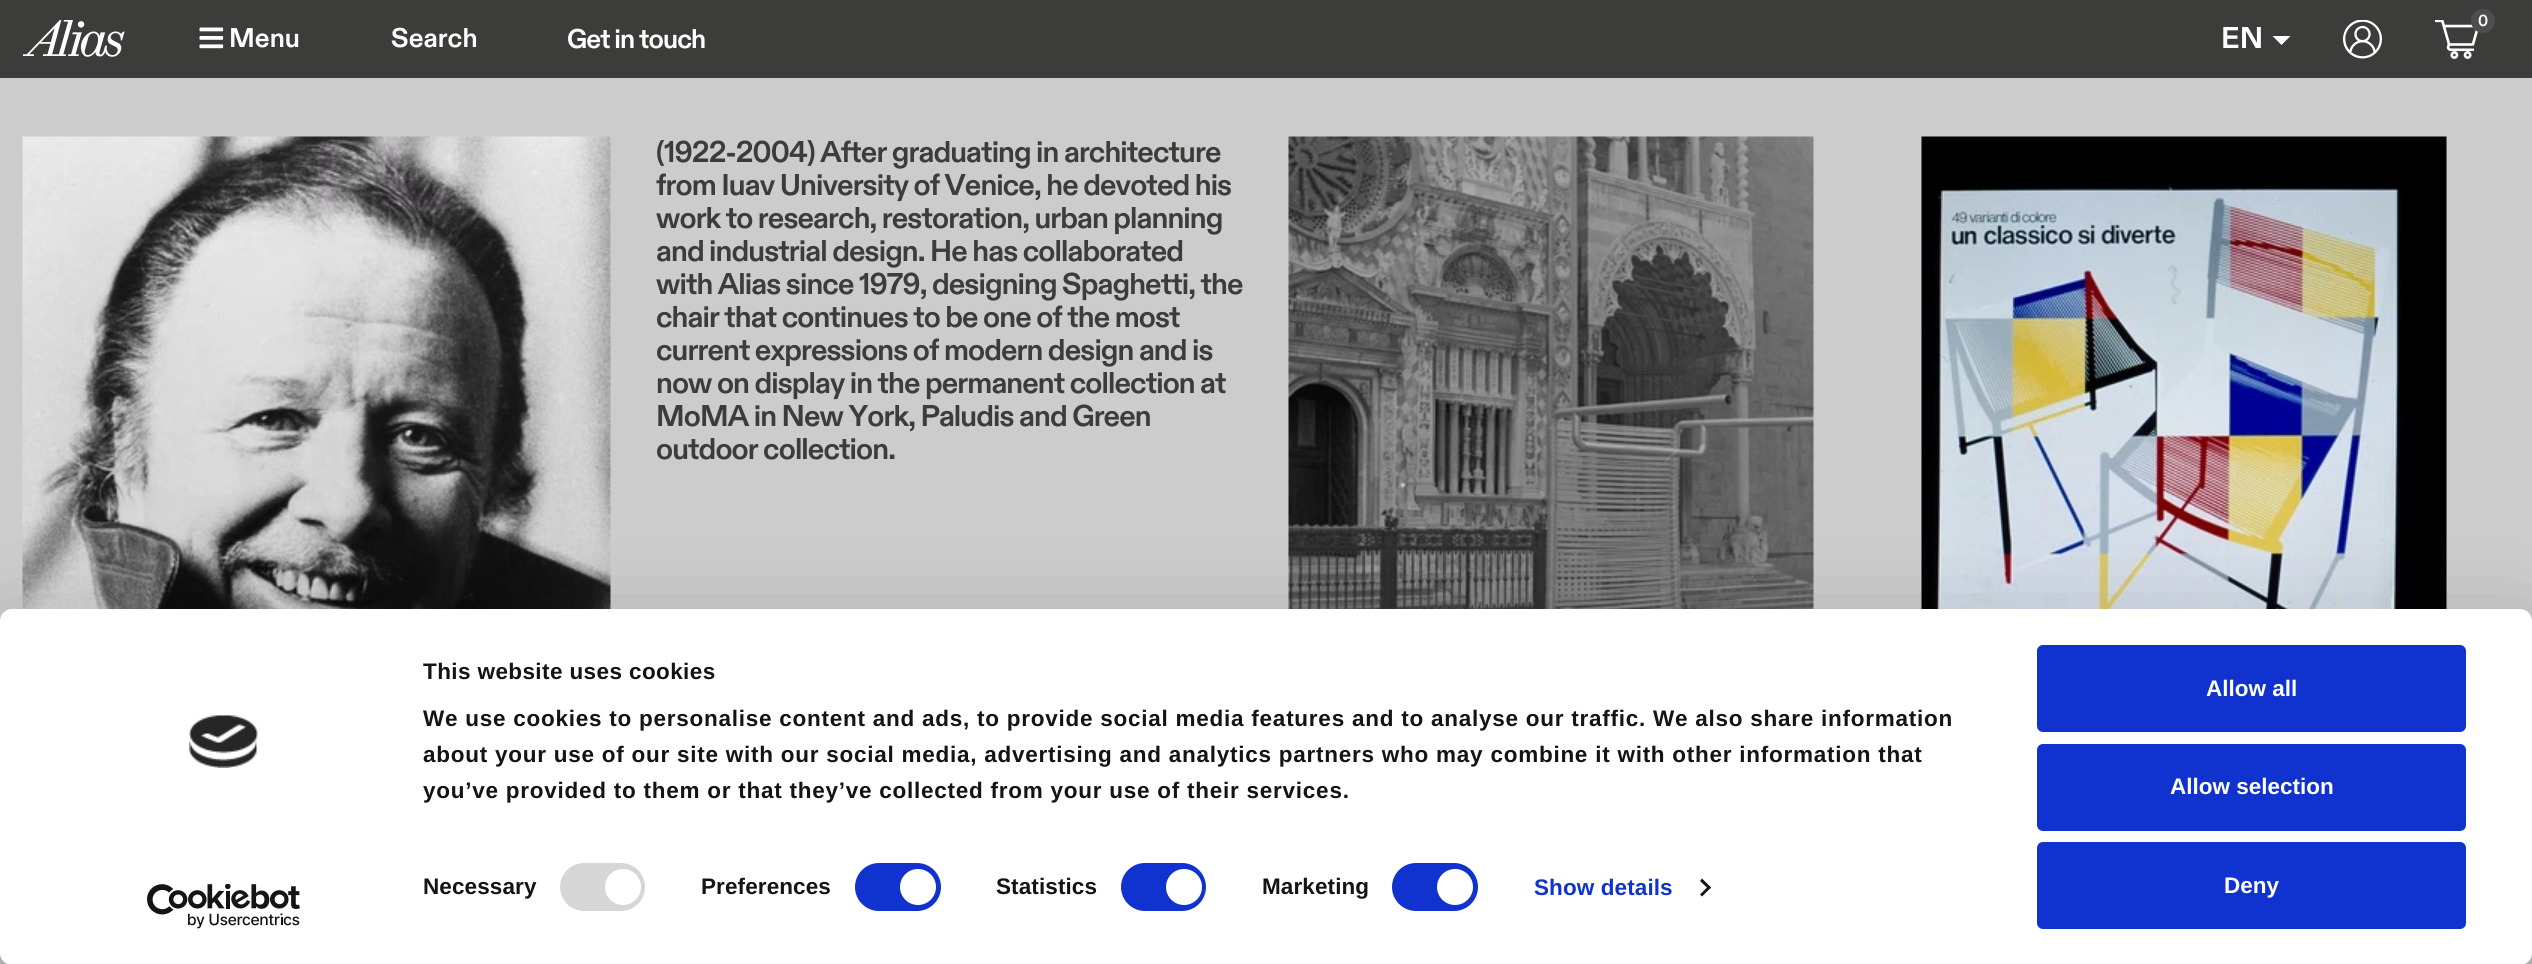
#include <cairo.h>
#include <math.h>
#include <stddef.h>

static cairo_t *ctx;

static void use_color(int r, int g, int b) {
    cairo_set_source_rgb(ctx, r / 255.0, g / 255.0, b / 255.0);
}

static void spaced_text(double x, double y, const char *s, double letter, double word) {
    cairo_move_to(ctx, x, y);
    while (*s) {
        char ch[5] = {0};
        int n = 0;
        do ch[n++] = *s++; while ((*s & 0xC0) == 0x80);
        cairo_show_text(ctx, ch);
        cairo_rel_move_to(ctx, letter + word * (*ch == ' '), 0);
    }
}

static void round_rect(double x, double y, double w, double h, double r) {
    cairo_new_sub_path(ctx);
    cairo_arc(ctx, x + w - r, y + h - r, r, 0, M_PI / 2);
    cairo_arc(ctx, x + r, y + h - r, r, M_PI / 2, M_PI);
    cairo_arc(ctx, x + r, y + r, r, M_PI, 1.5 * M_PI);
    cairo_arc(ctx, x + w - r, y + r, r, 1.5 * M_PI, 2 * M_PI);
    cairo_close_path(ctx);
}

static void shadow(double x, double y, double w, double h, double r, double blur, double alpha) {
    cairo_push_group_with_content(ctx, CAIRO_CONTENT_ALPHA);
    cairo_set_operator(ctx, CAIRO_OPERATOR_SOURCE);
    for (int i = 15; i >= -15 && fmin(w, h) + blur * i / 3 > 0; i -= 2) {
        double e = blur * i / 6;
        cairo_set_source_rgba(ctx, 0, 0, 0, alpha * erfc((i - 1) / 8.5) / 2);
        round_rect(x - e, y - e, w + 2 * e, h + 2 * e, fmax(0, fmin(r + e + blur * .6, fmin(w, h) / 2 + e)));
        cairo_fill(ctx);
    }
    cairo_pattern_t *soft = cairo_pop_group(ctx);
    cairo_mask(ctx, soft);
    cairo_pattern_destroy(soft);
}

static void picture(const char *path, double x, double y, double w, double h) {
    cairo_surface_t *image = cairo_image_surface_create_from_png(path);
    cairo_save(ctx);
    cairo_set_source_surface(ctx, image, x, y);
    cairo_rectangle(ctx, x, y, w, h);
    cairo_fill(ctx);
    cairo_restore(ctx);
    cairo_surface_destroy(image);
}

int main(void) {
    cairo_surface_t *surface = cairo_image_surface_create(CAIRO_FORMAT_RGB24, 2532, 964);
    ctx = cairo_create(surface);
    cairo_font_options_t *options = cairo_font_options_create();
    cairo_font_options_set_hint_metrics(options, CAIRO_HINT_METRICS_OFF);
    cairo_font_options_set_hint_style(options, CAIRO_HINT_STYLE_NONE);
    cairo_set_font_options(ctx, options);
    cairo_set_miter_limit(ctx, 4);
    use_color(204, 204, 204);
    cairo_paint(ctx);
    use_color(60, 60, 59);
    cairo_rectangle(ctx, 0, 0, 2532, 78);
    cairo_fill(ctx);
    picture("img1.png", 23, 20, 102, 37);
    picture("img2.png", 199, 27, 25, 22);
    cairo_select_font_face(ctx, "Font", CAIRO_FONT_SLANT_NORMAL, CAIRO_FONT_WEIGHT_BOLD);
    cairo_set_font_size(ctx, 27);
    use_color(255, 255, 255);
    cairo_move_to(ctx, 229, 47);
    cairo_show_text(ctx, "Menu");
    cairo_move_to(ctx, 391, 47);
    cairo_show_text(ctx, "Search");
    spaced_text(567, 48, "Get in touch", -0.9, 0);
    cairo_set_font_size(ctx, 30);
    cairo_move_to(ctx, 2221, 48);
    cairo_show_text(ctx, "EN");
    cairo_new_path(ctx);
    cairo_move_to(ctx, 2272.5, 36);
    cairo_line_to(ctx, 2290.5, 36);
    cairo_line_to(ctx, 2281.5, 45);
    cairo_close_path(ctx);
    cairo_fill(ctx);
    picture("img3.png", 2343, 20, 39, 39);
    picture("img4.png", 2435, 20, 44, 39);
    use_color(78, 78, 78);
    cairo_arc(ctx, 2483, 21, 12, 0, 2 * M_PI);
    cairo_fill(ctx);
    cairo_set_font_size(ctx, 16);
    use_color(255, 255, 255);
    spaced_text(2478, 26, "0", -0.9, 0);
    picture("img5.png", 22, 136, 589, 473);
    cairo_set_font_size(ctx, 30);
    use_color(60, 60, 59);
    spaced_text(656, 162, "(1922-2004) After graduating in architecture", -0.9, 0);
    spaced_text(656, 195, "from Iuav University of Venice, he devoted his", -0.9, 0);
    spaced_text(656, 228, "work to research, restoration, urban planning", -0.9, 0);
    spaced_text(656, 261, "and industrial design. He has collaborated", -0.9, 0);
    spaced_text(656, 294, "with Alias since 1979, designing Spaghetti, the", -0.9, 0);
    spaced_text(656, 327, "chair that continues to be one of the most", -0.9, 0);
    spaced_text(656, 360, "current expressions of modern design and is", -0.9, 0);
    spaced_text(656, 393, "now on display in the permanent collection at", -0.9, 0);
    spaced_text(656, 426, "MoMA in New York, Paludis and Green", -0.9, 0);
    spaced_text(656, 459, "outdoor collection.", -0.9, 0);
    picture("img6.png", 1288, 136, 526, 473);
    picture("img7.png", 1921, 136, 526, 473);
    use_color(0, 0, 0);
    shadow(0, 654, 2532, 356, 12, 52.5, 0.3);
    use_color(255, 255, 255);
    round_rect(0, 609, 2532, 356, 12);
    cairo_fill(ctx);
    picture("img8.png", 189, 715, 69, 53);
    picture("img9.png", 147, 884, 153, 45);
    cairo_select_font_face(ctx, "Liberation Sans", CAIRO_FONT_SLANT_NORMAL, CAIRO_FONT_WEIGHT_BOLD);
    cairo_set_font_size(ctx, 22.5);
    use_color(20, 20, 20);
    spaced_text(423, 679, "This website uses cookies", 0.4, 0);
    spaced_text(423, 726, "We use cookies to personalise content and ads, to provide social media features and to analyse our traffic. We also share information", 0.75, 0);
    spaced_text(423, 762, "about your use of our site with our social media, advertising and analytics partners who may combine it with other information that", 0.75, 0);
    spaced_text(423, 798, "you’ve provided to them or that they’ve collected from your use of their services.", 0.75, 0);
    spaced_text(423, 894, "Necessary", 0.1, 0);
    use_color(214, 214, 214);
    round_rect(560, 863, 85, 48, 24);
    cairo_fill(ctx);
    use_color(255, 255, 255);
    cairo_arc(ctx, 623, 887, 18, 0, 2 * M_PI);
    cairo_fill(ctx);
    use_color(20, 20, 20);
    spaced_text(701, 894, "Preferences", 0.1, 0);
    use_color(16, 50, 207);
    round_rect(855, 863, 86, 48, 24);
    cairo_fill(ctx);
    use_color(255, 255, 255);
    cairo_arc(ctx, 918, 887, 18, 0, 2 * M_PI);
    cairo_fill(ctx);
    use_color(20, 20, 20);
    spaced_text(996, 894, "Statistics", 0.1, 0);
    use_color(16, 50, 207);
    round_rect(1121, 863, 85, 48, 24);
    cairo_fill(ctx);
    use_color(255, 255, 255);
    cairo_arc(ctx, 1184, 887, 18, 0, 2 * M_PI);
    cairo_fill(ctx);
    use_color(20, 20, 20);
    spaced_text(1262, 894, "Marketing", 0.1, 0);
    use_color(16, 50, 207);
    round_rect(1392, 863, 86, 48, 24);
    cairo_fill(ctx);
    use_color(255, 255, 255);
    cairo_arc(ctx, 1455, 887, 18, 0, 2 * M_PI);
    cairo_fill(ctx);
    use_color(16, 50, 207);
    spaced_text(1534, 895, "Show details", 0.1, 0);
    use_color(20, 20, 20);
    cairo_new_path(ctx);
    cairo_move_to(ctx, 1702, 878.5);
    cairo_line_to(ctx, 1711, 887.5);
    cairo_line_to(ctx, 1709, 889.5);
    cairo_line_to(ctx, 1700, 881);
    cairo_close_path(ctx);
    cairo_fill(ctx);
    cairo_new_path(ctx);
    cairo_move_to(ctx, 1709, 885.5);
    cairo_line_to(ctx, 1711, 887.5);
    cairo_line_to(ctx, 1702, 896.5);
    cairo_line_to(ctx, 1700, 894.5);
    cairo_close_path(ctx);
    cairo_fill(ctx);
    use_color(16, 50, 207);
    round_rect(2038.5, 646.5, 426, 84, 4.5);
    cairo_fill_preserve(ctx);
    cairo_set_line_width(ctx, 3);
    cairo_stroke(ctx);
    use_color(255, 255, 255);
    cairo_move_to(ctx, 2206, 696);
    cairo_show_text(ctx, "Allow all");
    use_color(16, 50, 207);
    round_rect(2038.5, 745.5, 426, 84, 4.5);
    cairo_fill_preserve(ctx);
    cairo_stroke(ctx);
    use_color(255, 255, 255);
    cairo_move_to(ctx, 2170, 794);
    cairo_show_text(ctx, "Allow selection");
    use_color(16, 50, 207);
    round_rect(2038.5, 843.5, 426, 84, 4.5);
    cairo_fill_preserve(ctx);
    cairo_stroke(ctx);
    use_color(255, 255, 255);
    cairo_move_to(ctx, 2224, 893);
    cairo_show_text(ctx, "Deny");
    cairo_surface_write_to_png(surface, "result.png");
    cairo_font_options_destroy(options);
    cairo_destroy(ctx);
    cairo_surface_destroy(surface);
    return 0;
}
